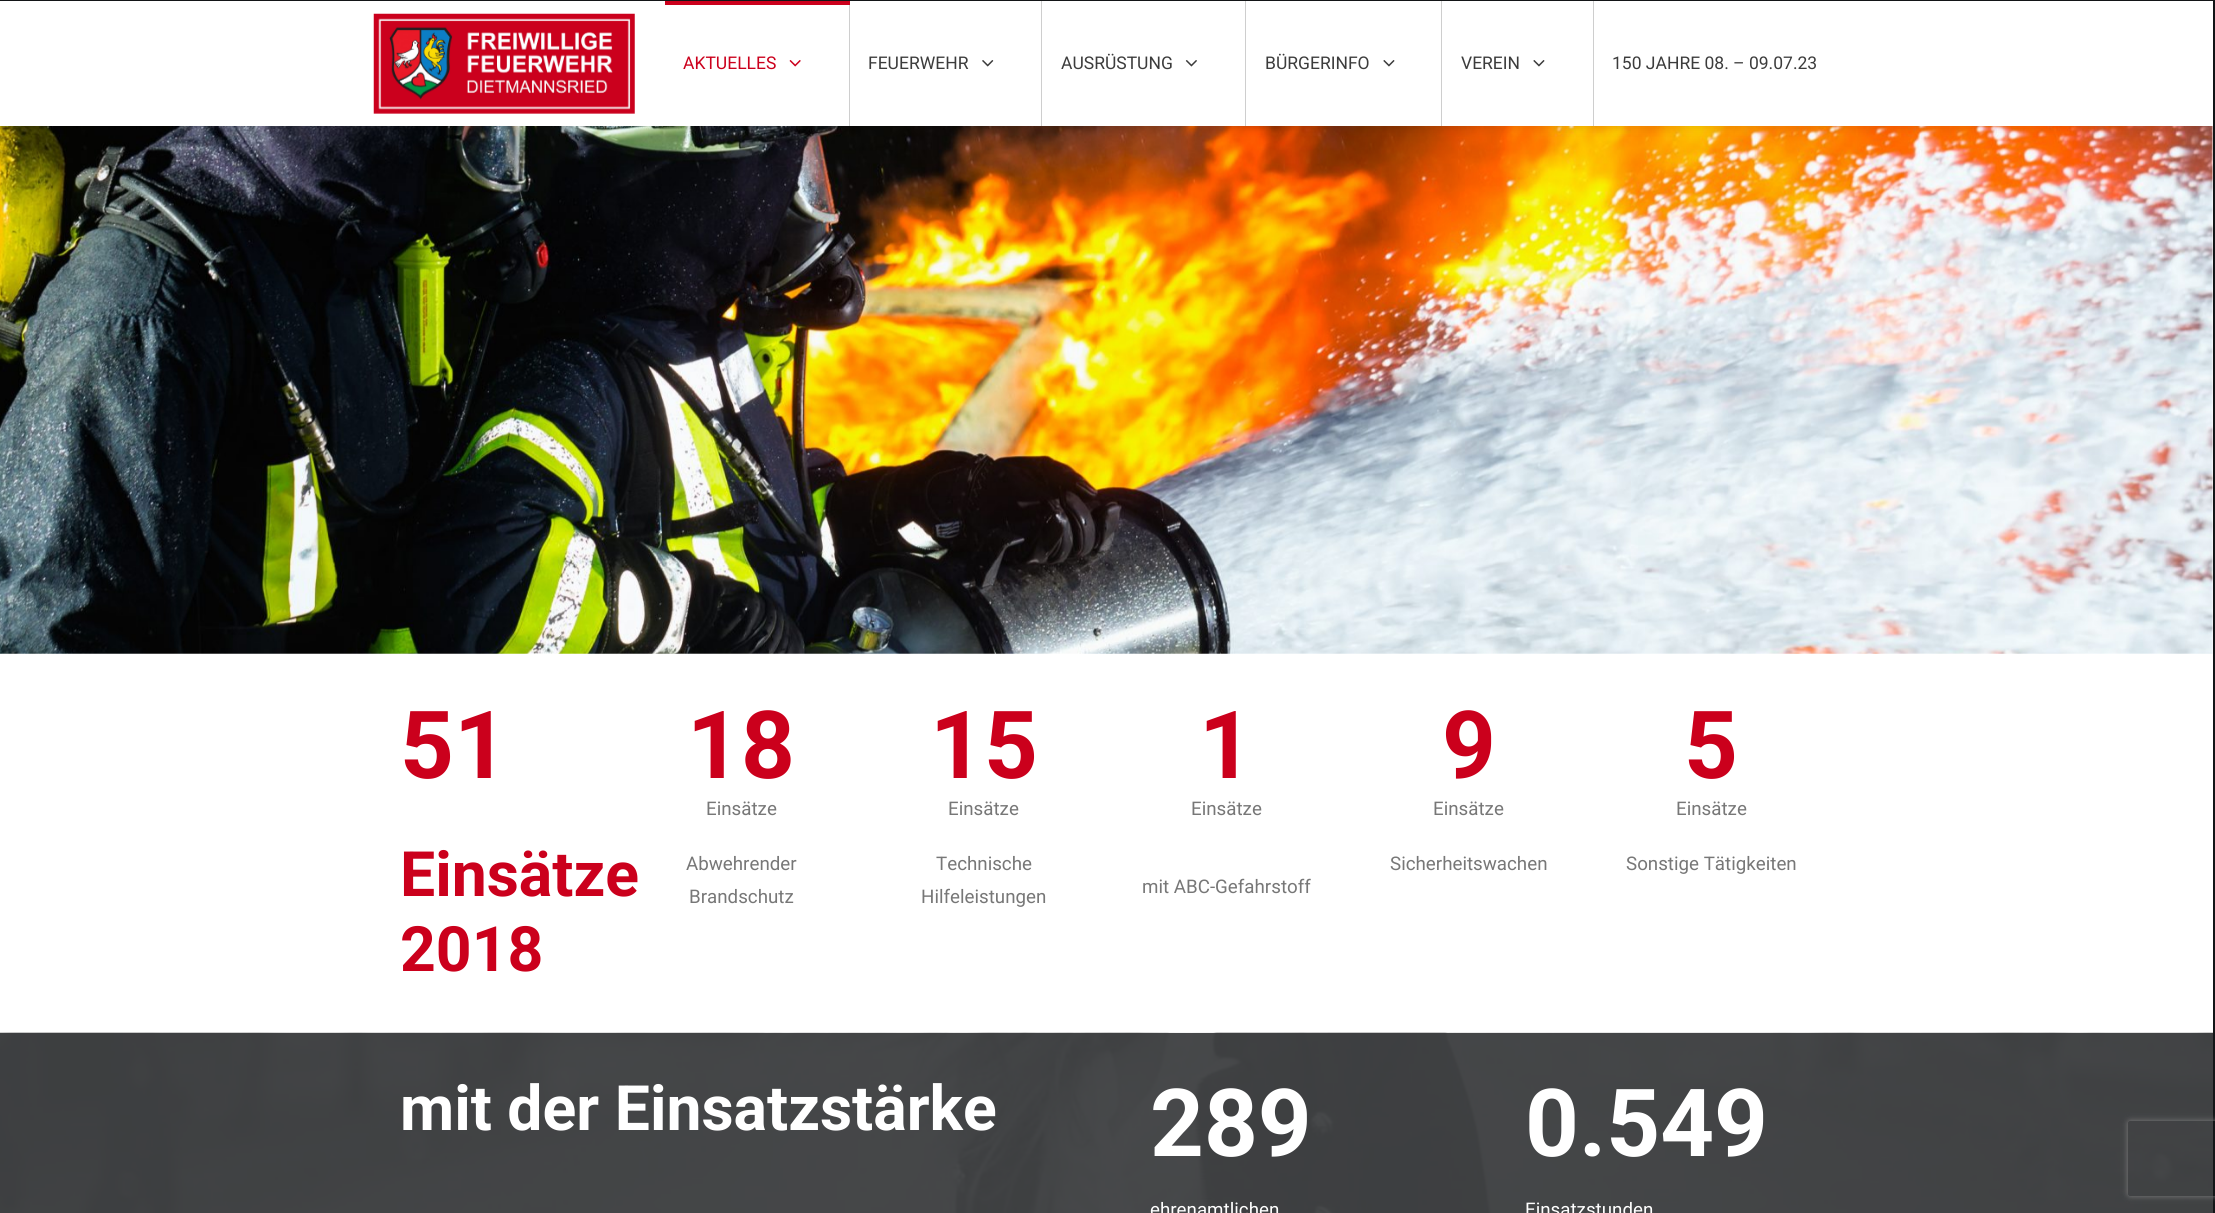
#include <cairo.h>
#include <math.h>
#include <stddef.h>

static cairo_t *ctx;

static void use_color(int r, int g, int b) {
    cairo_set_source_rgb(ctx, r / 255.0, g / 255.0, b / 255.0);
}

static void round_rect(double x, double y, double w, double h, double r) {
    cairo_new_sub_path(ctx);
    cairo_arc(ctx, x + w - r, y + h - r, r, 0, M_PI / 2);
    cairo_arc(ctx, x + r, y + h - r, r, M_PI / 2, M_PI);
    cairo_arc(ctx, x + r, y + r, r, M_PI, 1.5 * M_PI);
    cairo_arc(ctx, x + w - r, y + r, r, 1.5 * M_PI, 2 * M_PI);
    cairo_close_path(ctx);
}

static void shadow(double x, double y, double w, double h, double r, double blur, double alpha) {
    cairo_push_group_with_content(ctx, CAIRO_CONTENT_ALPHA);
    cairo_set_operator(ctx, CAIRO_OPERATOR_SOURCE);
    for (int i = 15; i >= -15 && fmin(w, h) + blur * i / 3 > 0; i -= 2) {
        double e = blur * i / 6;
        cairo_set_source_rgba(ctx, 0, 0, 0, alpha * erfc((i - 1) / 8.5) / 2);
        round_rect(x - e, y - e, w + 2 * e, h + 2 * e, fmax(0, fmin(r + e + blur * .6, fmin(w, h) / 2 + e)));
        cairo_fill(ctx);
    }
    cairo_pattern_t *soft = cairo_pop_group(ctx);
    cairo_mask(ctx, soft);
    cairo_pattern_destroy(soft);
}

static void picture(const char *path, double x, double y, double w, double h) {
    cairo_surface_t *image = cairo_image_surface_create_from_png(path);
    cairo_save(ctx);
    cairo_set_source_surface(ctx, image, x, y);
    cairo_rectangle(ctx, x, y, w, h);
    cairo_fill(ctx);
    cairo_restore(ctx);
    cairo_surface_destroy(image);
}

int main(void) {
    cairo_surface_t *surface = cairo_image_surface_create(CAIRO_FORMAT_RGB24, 2215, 1213);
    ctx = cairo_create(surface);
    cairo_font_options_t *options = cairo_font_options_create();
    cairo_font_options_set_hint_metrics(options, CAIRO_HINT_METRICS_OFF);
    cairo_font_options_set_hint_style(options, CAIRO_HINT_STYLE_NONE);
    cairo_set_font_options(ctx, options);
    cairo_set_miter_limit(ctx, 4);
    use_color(20, 22, 24);
    cairo_paint(ctx);
    use_color(255, 255, 255);
    cairo_rectangle(ctx, 0, 126, 2213, 906);
    cairo_fill(ctx);
    picture("img6.png", 0, 126, 2213, 528);
    use_color(0, 0, 0);
    shadow(-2, 1, 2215, 125, 0, 6, 0.1);
    use_color(255, 255, 255);
    cairo_rectangle(ctx, 0, 1, 2213, 125);
    cairo_fill(ctx);
    picture("img1.png", 373, 13, 262, 101);
    use_color(206, 206, 206);
    cairo_rectangle(ctx, 849, 1, 1, 125);
    cairo_fill(ctx);
    use_color(203, 0, 28);
    cairo_rectangle(ctx, 665, 1, 185, 4);
    cairo_fill(ctx);
    cairo_select_font_face(ctx, "Roboto", CAIRO_FONT_SLANT_NORMAL, CAIRO_FONT_WEIGHT_NORMAL);
    cairo_set_font_size(ctx, 17.5);
    cairo_move_to(ctx, 683, 69);
    cairo_show_text(ctx, "AKTUELLES");
    picture("img2.png", 789, 60, 12, 7);
    use_color(60, 60, 60);
    cairo_move_to(ctx, 868, 69);
    cairo_show_text(ctx, "FEUERWEHR");
    picture("img3.png", 982, 60, 12, 7);
    use_color(206, 206, 206);
    cairo_rectangle(ctx, 1041, 1, 1, 125);
    cairo_fill(ctx);
    use_color(60, 60, 60);
    cairo_move_to(ctx, 1061, 69);
    cairo_show_text(ctx, "AUSRÜSTUNG");
    picture("img4.png", 1185, 60, 12, 7);
    use_color(206, 206, 206);
    cairo_rectangle(ctx, 1245, 1, 1, 125);
    cairo_fill(ctx);
    use_color(60, 60, 60);
    cairo_move_to(ctx, 1265, 69);
    cairo_show_text(ctx, "BÜRGERINFO");
    picture("img5.png", 1383, 60, 12, 7);
    use_color(206, 206, 206);
    cairo_rectangle(ctx, 1441, 1, 1, 125);
    cairo_fill(ctx);
    use_color(60, 60, 60);
    cairo_move_to(ctx, 1461, 69);
    cairo_show_text(ctx, "VEREIN");
    picture("img5.png", 1533, 60, 12, 7);
    use_color(206, 206, 206);
    cairo_rectangle(ctx, 1593, 1, 1, 125);
    cairo_fill(ctx);
    use_color(60, 60, 60);
    cairo_move_to(ctx, 1612, 69);
    cairo_show_text(ctx, "150 JAHRE 08. – 09.07.23");
    cairo_select_font_face(ctx, "Roboto", CAIRO_FONT_SLANT_NORMAL, CAIRO_FONT_WEIGHT_BOLD);
    cairo_set_font_size(ctx, 94);
    use_color(203, 0, 28);
    cairo_move_to(ctx, 400, 778);
    cairo_show_text(ctx, "51");
    cairo_set_font_size(ctx, 62.5);
    cairo_move_to(ctx, 400, 896);
    cairo_show_text(ctx, "Einsätze");
    cairo_move_to(ctx, 400, 971);
    cairo_show_text(ctx, "2018");
    cairo_set_font_size(ctx, 94);
    cairo_move_to(ctx, 687, 778);
    cairo_show_text(ctx, "18");
    cairo_select_font_face(ctx, "Roboto", CAIRO_FONT_SLANT_NORMAL, CAIRO_FONT_WEIGHT_NORMAL);
    cairo_set_font_size(ctx, 18.75);
    use_color(119, 119, 119);
    cairo_move_to(ctx, 706, 815);
    cairo_show_text(ctx, "Einsätze");
    cairo_move_to(ctx, 686, 870);
    cairo_show_text(ctx, "Abwehrender");
    cairo_move_to(ctx, 689, 903);
    cairo_show_text(ctx, "Brandschutz");
    cairo_select_font_face(ctx, "Roboto", CAIRO_FONT_SLANT_NORMAL, CAIRO_FONT_WEIGHT_BOLD);
    cairo_set_font_size(ctx, 94);
    use_color(203, 0, 28);
    cairo_move_to(ctx, 930, 778);
    cairo_show_text(ctx, "15");
    cairo_select_font_face(ctx, "Roboto", CAIRO_FONT_SLANT_NORMAL, CAIRO_FONT_WEIGHT_NORMAL);
    cairo_set_font_size(ctx, 18.75);
    use_color(119, 119, 119);
    cairo_move_to(ctx, 948, 815);
    cairo_show_text(ctx, "Einsätze");
    cairo_move_to(ctx, 936, 870);
    cairo_show_text(ctx, "Technische");
    cairo_move_to(ctx, 921, 903);
    cairo_show_text(ctx, "Hilfeleistungen");
    cairo_select_font_face(ctx, "Roboto", CAIRO_FONT_SLANT_NORMAL, CAIRO_FONT_WEIGHT_BOLD);
    cairo_set_font_size(ctx, 94);
    use_color(203, 0, 28);
    cairo_move_to(ctx, 1199, 778);
    cairo_show_text(ctx, "1");
    cairo_select_font_face(ctx, "Roboto", CAIRO_FONT_SLANT_NORMAL, CAIRO_FONT_WEIGHT_NORMAL);
    cairo_set_font_size(ctx, 18.75);
    use_color(119, 119, 119);
    cairo_move_to(ctx, 1191, 815);
    cairo_show_text(ctx, "Einsätze");
    cairo_move_to(ctx, 1142, 893);
    cairo_show_text(ctx, "mit ABC-Gefahrstoff");
    cairo_select_font_face(ctx, "Roboto", CAIRO_FONT_SLANT_NORMAL, CAIRO_FONT_WEIGHT_BOLD);
    cairo_set_font_size(ctx, 94);
    use_color(203, 0, 28);
    cairo_move_to(ctx, 1442, 778);
    cairo_show_text(ctx, "9");
    cairo_select_font_face(ctx, "Roboto", CAIRO_FONT_SLANT_NORMAL, CAIRO_FONT_WEIGHT_NORMAL);
    cairo_set_font_size(ctx, 18.75);
    use_color(119, 119, 119);
    cairo_move_to(ctx, 1433, 815);
    cairo_show_text(ctx, "Einsätze");
    cairo_move_to(ctx, 1390, 870);
    cairo_show_text(ctx, "Sicherheitswachen");
    cairo_select_font_face(ctx, "Roboto", CAIRO_FONT_SLANT_NORMAL, CAIRO_FONT_WEIGHT_BOLD);
    cairo_set_font_size(ctx, 94);
    use_color(203, 0, 28);
    cairo_move_to(ctx, 1684, 778);
    cairo_show_text(ctx, "5");
    cairo_select_font_face(ctx, "Roboto", CAIRO_FONT_SLANT_NORMAL, CAIRO_FONT_WEIGHT_NORMAL);
    cairo_set_font_size(ctx, 18.75);
    use_color(119, 119, 119);
    cairo_move_to(ctx, 1676, 815);
    cairo_show_text(ctx, "Einsätze");
    cairo_move_to(ctx, 1626, 870);
    cairo_show_text(ctx, "Sonstige Tätigkeiten");
    picture("img7.png", 0, 1032, 2213, 181);
    cairo_select_font_face(ctx, "Roboto", CAIRO_FONT_SLANT_NORMAL, CAIRO_FONT_WEIGHT_BOLD);
    cairo_set_font_size(ctx, 62.5);
    use_color(255, 255, 255);
    cairo_move_to(ctx, 400, 1130);
    cairo_show_text(ctx, "mit der Einsatzstärke");
    cairo_set_font_size(ctx, 94);
    cairo_move_to(ctx, 1150, 1156);
    cairo_show_text(ctx, "289");
    cairo_select_font_face(ctx, "Roboto", CAIRO_FONT_SLANT_NORMAL, CAIRO_FONT_WEIGHT_NORMAL);
    cairo_set_font_size(ctx, 18.75);
    cairo_move_to(ctx, 1150, 1216);
    cairo_show_text(ctx, "ehrenamtlichen");
    cairo_select_font_face(ctx, "Roboto", CAIRO_FONT_SLANT_NORMAL, CAIRO_FONT_WEIGHT_BOLD);
    cairo_set_font_size(ctx, 94);
    cairo_move_to(ctx, 1525, 1156);
    cairo_show_text(ctx, "0.549");
    cairo_select_font_face(ctx, "Roboto", CAIRO_FONT_SLANT_NORMAL, CAIRO_FONT_WEIGHT_NORMAL);
    cairo_set_font_size(ctx, 18.75);
    cairo_move_to(ctx, 1525, 1216);
    cairo_show_text(ctx, "Einsatzstunden");
    cairo_save(ctx);
    cairo_set_fill_rule(ctx, CAIRO_FILL_RULE_EVEN_ODD);
    cairo_new_path(ctx);
    cairo_move_to(ctx, 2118, 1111);
    cairo_line_to(ctx, 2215, 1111);
    cairo_line_to(ctx, 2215, 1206);
    cairo_line_to(ctx, 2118, 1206);
    cairo_close_path(ctx);
    cairo_move_to(ctx, 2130.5, 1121);
    cairo_line_to(ctx, 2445.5, 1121);
    cairo_curve_to(ctx, 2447, 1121, 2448, 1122, 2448, 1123.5);
    cairo_line_to(ctx, 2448, 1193.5);
    cairo_curve_to(ctx, 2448, 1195, 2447, 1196, 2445.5, 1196);
    cairo_line_to(ctx, 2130.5, 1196);
    cairo_curve_to(ctx, 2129, 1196, 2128, 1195, 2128, 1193.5);
    cairo_line_to(ctx, 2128, 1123.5);
    cairo_curve_to(ctx, 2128, 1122, 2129, 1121, 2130.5, 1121);
    cairo_close_path(ctx);
    cairo_clip(ctx);
    use_color(128, 128, 128);
    shadow(2128, 1121, 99, 75, 2.5, 3, 1);
    cairo_restore(ctx);
    cairo_surface_write_to_png(surface, "result.png");
    cairo_font_options_destroy(options);
    cairo_destroy(ctx);
    cairo_surface_destroy(surface);
    return 0;
}
